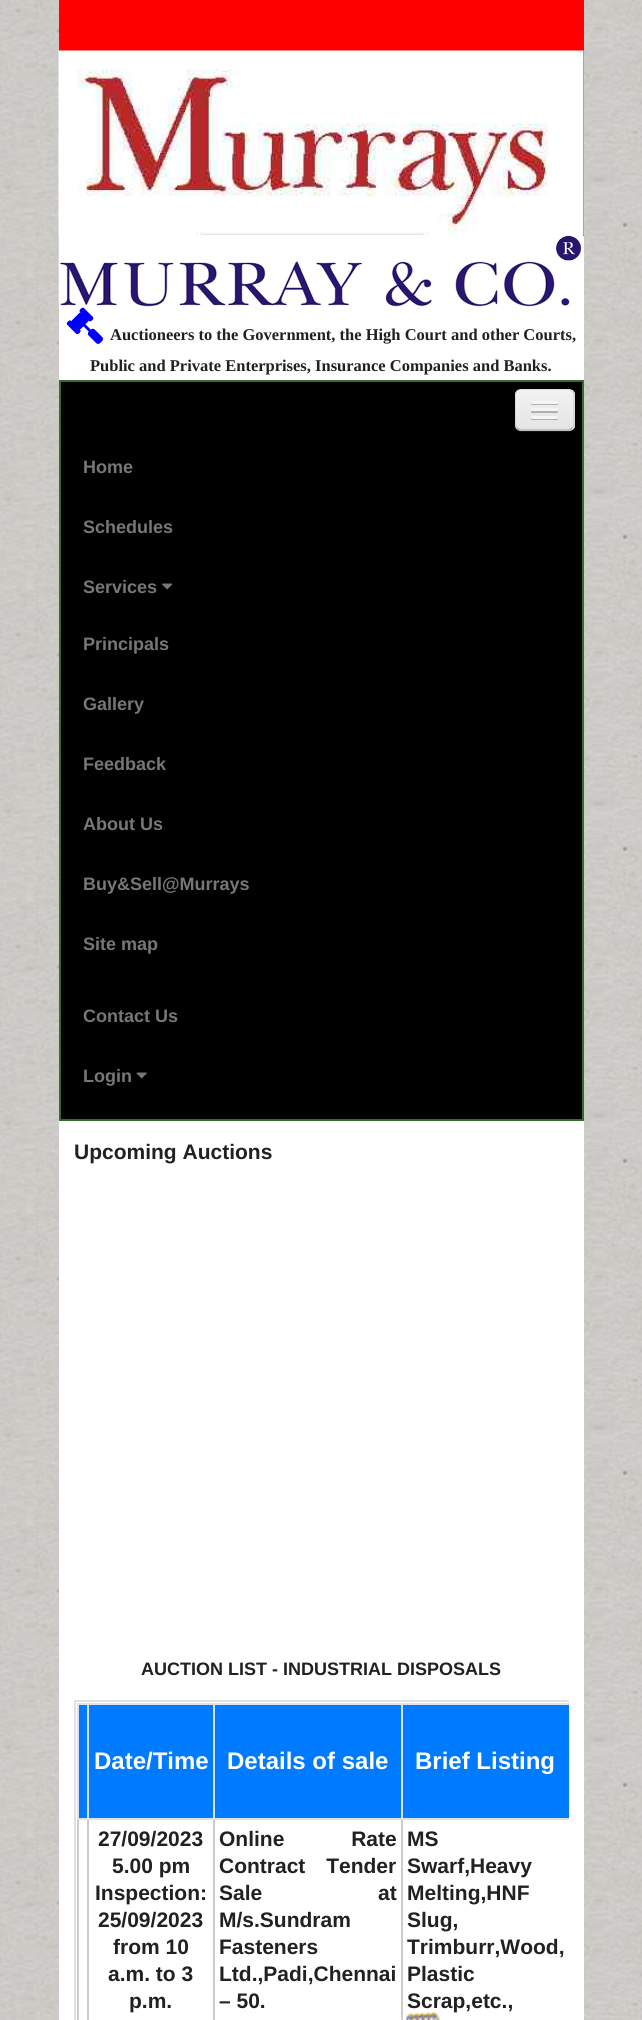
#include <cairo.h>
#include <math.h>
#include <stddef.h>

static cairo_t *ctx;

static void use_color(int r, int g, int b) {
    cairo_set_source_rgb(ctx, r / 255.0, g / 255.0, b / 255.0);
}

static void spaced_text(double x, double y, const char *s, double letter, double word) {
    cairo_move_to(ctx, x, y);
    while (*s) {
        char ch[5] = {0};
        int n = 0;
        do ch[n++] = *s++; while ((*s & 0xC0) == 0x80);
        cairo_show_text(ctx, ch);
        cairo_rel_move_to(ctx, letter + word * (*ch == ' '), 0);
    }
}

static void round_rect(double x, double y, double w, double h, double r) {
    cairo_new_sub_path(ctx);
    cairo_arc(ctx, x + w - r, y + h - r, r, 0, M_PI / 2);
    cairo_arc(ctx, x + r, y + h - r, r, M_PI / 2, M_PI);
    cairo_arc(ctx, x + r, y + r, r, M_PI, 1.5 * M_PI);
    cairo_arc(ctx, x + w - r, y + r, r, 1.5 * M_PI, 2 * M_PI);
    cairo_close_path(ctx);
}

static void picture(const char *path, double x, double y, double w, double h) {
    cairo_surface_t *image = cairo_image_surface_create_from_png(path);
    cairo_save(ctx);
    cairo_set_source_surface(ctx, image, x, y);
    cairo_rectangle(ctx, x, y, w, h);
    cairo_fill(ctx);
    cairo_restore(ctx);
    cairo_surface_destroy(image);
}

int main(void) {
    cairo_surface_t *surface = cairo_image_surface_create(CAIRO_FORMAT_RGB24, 642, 2020);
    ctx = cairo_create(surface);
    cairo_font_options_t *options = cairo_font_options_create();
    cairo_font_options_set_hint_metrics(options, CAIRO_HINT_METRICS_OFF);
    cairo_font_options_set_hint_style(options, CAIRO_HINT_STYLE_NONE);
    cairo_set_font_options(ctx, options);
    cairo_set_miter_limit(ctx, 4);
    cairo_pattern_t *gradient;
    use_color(255, 255, 255);
    cairo_paint(ctx);
    picture("img1.png", 0, 0, 642, 2020);
    use_color(255, 255, 255);
    cairo_rectangle(ctx, 59, 236, 525, 1784);
    cairo_fill(ctx);
    use_color(255, 0, 0);
    cairo_rectangle(ctx, 59, 0, 525, 236);
    cairo_fill(ctx);
    picture("img2.png", 58, 50, 526, 185);
    picture("img3.png", 58, 235, 526, 72);
    picture("img4.png", 66, 307, 37, 37);
    cairo_select_font_face(ctx, "Liberation Serif", CAIRO_FONT_SLANT_NORMAL, CAIRO_FONT_WEIGHT_BOLD);
    cairo_set_font_size(ctx, 16.5);
    use_color(33, 33, 33);
    cairo_move_to(ctx, 110, 340);
    cairo_show_text(ctx, "Auctioneers to the Government, the High Court and other Courts,");
    cairo_move_to(ctx, 90, 371);
    cairo_show_text(ctx, "Public and Private Enterprises, Insurance Companies and Banks.");
    use_color(0, 0, 0);
    cairo_rectangle(ctx, 60, 381, 523, 739);
    cairo_fill_preserve(ctx);
    use_color(51, 108, 43);
    cairo_stroke(ctx);
    use_color(19, 19, 19);
    cairo_new_path(ctx);
    cairo_move_to(ctx, 515, 427);
    cairo_curve_to(ctx, 516, 430, 518, 432, 521, 432);
    cairo_line_to(ctx, 569, 432);
    cairo_curve_to(ctx, 572, 432, 575, 429, 575, 426);
    cairo_line_to(ctx, 575, 396);
    cairo_line_to(ctx, 574, 393);
    cairo_line_to(ctx, 574, 426);
    cairo_line_to(ctx, 573, 428);
    cairo_curve_to(ctx, 573, 429, 571, 430, 570, 430);
    cairo_line_to(ctx, 528, 430);
    cairo_curve_to(ctx, 524, 430, 517, 432, 515, 427);
    cairo_close_path(ctx);
    cairo_fill(ctx);
    use_color(237, 237, 237);
    round_rect(515, 389, 60, 42, 6);
    cairo_fill(ctx);
    cairo_save(ctx);
    round_rect(515, 389, 60, 42, 6);
    cairo_clip(ctx);
    gradient = cairo_pattern_create_linear(545, 390, 545, 429);
    cairo_pattern_add_color_stop_rgba(gradient, 0, 0.949, 0.949, 0.949, 1);
    cairo_pattern_add_color_stop_rgba(gradient, 1, 0.898, 0.898, 0.898, 1);
    cairo_set_source(ctx, gradient);
    cairo_pattern_destroy(gradient);
    cairo_rectangle(ctx, 515, 390, 60, 39);
    cairo_fill(ctx);
    cairo_restore(ctx);
    cairo_new_path(ctx);
    cairo_move_to(ctx, 572, 428);
    cairo_curve_to(ctx, 571, 429, 570, 430, 568.5, 430);
    cairo_line_to(ctx, 520.5, 430);
    cairo_curve_to(ctx, 519, 430, 518, 429, 517, 428);
    cairo_set_source_rgba(ctx, 0, 0, 0, 0.25);
    cairo_set_line_width(ctx, 1.5);
    cairo_stroke(ctx);
    cairo_new_path(ctx);
    cairo_move_to(ctx, 517, 428);
    cairo_curve_to(ctx, 516, 427, 515, 426, 515, 424.5);
    cairo_line_to(ctx, 515, 394.5);
    cairo_curve_to(ctx, 515, 393, 516, 392, 517, 391);
    cairo_curve_to(ctx, 518, 390, 519, 389, 520.5, 389);
    cairo_line_to(ctx, 568.5, 389);
    cairo_curve_to(ctx, 570, 389, 571, 390, 572, 391);
    cairo_curve_to(ctx, 573, 392, 574, 393, 574, 394.5);
    cairo_line_to(ctx, 574, 424.5);
    cairo_curve_to(ctx, 574, 426, 573, 427, 572, 428);
    cairo_set_source_rgba(ctx, 0, 0, 0, 0.1);
    cairo_stroke(ctx);
    use_color(178, 178, 178);
    cairo_new_path(ctx);
    cairo_move_to(ctx, 531, 403);
    cairo_curve_to(ctx, 529.5, 406, 536.5, 405, 536.5, 405);
    cairo_line_to(ctx, 552.5, 405);
    cairo_curve_to(ctx, 552.5, 405, 559.5, 406, 558, 403);
    cairo_curve_to(ctx, 557.5, 403, 557, 403.5, 556.5, 403.5);
    cairo_line_to(ctx, 532.5, 403.5);
    cairo_curve_to(ctx, 532, 403.5, 531.5, 403, 531, 403);
    cairo_close_path(ctx);
    cairo_fill(ctx);
    use_color(245, 245, 245);
    round_rect(531, 401, 27, 3, 1.5);
    cairo_fill(ctx);
    use_color(176, 176, 176);
    cairo_new_path(ctx);
    cairo_move_to(ctx, 531.5, 410.5);
    cairo_line_to(ctx, 531, 412);
    cairo_curve_to(ctx, 531.5, 414, 536, 413, 536.5, 413);
    cairo_line_to(ctx, 552.5, 413);
    cairo_curve_to(ctx, 553, 413, 557.5, 414, 558, 412);
    cairo_line_to(ctx, 557.5, 410.5);
    cairo_line_to(ctx, 556.5, 411);
    cairo_line_to(ctx, 532.5, 411);
    cairo_close_path(ctx);
    cairo_fill(ctx);
    use_color(245, 245, 245);
    round_rect(531, 408, 27, 3, 1.5);
    cairo_fill(ctx);
    use_color(174, 174, 174);
    cairo_new_path(ctx);
    cairo_move_to(ctx, 531, 418);
    cairo_curve_to(ctx, 529.5, 421, 536.5, 420, 536.5, 420);
    cairo_line_to(ctx, 552.5, 420);
    cairo_curve_to(ctx, 552.5, 420, 559.5, 421, 558, 418);
    cairo_curve_to(ctx, 557.5, 418, 557, 418.5, 556.5, 418.5);
    cairo_line_to(ctx, 532.5, 418.5);
    cairo_curve_to(ctx, 532, 418.5, 531.5, 418, 531, 418);
    cairo_close_path(ctx);
    cairo_fill(ctx);
    use_color(245, 245, 245);
    round_rect(531, 416, 27, 3, 1.5);
    cairo_fill(ctx);
    cairo_select_font_face(ctx, "Liberation Sans", CAIRO_FONT_SLANT_NORMAL, CAIRO_FONT_WEIGHT_BOLD);
    cairo_set_font_size(ctx, 18);
    use_color(119, 119, 119);
    cairo_move_to(ctx, 83, 473);
    cairo_show_text(ctx, "Home");
    cairo_move_to(ctx, 83, 533);
    cairo_show_text(ctx, "Schedules");
    cairo_move_to(ctx, 83, 593);
    cairo_show_text(ctx, "Services");
    picture("img5.png", 162, 583, 11, 7);
    cairo_move_to(ctx, 83, 650);
    cairo_show_text(ctx, "Principals");
    cairo_move_to(ctx, 83, 710);
    cairo_show_text(ctx, "Gallery");
    cairo_move_to(ctx, 83, 770);
    cairo_show_text(ctx, "Feedback");
    cairo_move_to(ctx, 83, 830);
    cairo_show_text(ctx, "About Us");
    cairo_move_to(ctx, 83, 890);
    cairo_show_text(ctx, "Buy&Sell@Murrays");
    cairo_move_to(ctx, 83, 950);
    cairo_show_text(ctx, "Site map");
    cairo_move_to(ctx, 83, 1022);
    cairo_show_text(ctx, "Contact Us");
    cairo_move_to(ctx, 83, 1082);
    cairo_show_text(ctx, "Login");
    picture("img6.png", 136, 1072, 11, 7);
    cairo_set_font_size(ctx, 21);
    use_color(33, 33, 33);
    cairo_move_to(ctx, 74, 1159);
    cairo_show_text(ctx, "Upcoming Auctions");
    cairo_set_font_size(ctx, 18);
    cairo_move_to(ctx, 141, 1675);
    cairo_show_text(ctx, "AUCTION LIST - INDUSTRIAL DISPOSALS");
    use_color(222, 226, 230);
    cairo_rectangle(ctx, 74, 1700, 495, 2);
    cairo_fill(ctx);
    cairo_rectangle(ctx, 74, 1700, 2, 320);
    cairo_fill(ctx);
    use_color(0, 123, 255);
    cairo_rectangle(ctx, 79, 1705, 8, 113);
    cairo_fill(ctx);
    use_color(222, 226, 230);
    cairo_rectangle(ctx, 401, 1703, 168, 2);
    cairo_fill(ctx);
    use_color(204, 204, 204);
    cairo_rectangle(ctx, 401, 1818, 2, 202);
    cairo_fill(ctx);
    use_color(222, 226, 230);
    cairo_rectangle(ctx, 401, 1818, 168, 2);
    cairo_fill(ctx);
    cairo_rectangle(ctx, 401, 1703, 2, 117);
    cairo_fill(ctx);
    cairo_rectangle(ctx, 213, 1703, 189, 2);
    cairo_fill(ctx);
    use_color(204, 204, 204);
    cairo_rectangle(ctx, 213, 1818, 2, 202);
    cairo_fill(ctx);
    use_color(222, 226, 230);
    cairo_rectangle(ctx, 213, 1818, 189, 2);
    cairo_fill(ctx);
    cairo_rectangle(ctx, 213, 1703, 2, 117);
    cairo_fill(ctx);
    cairo_rectangle(ctx, 87, 1703, 128, 2);
    cairo_fill(ctx);
    use_color(204, 204, 204);
    cairo_rectangle(ctx, 87, 1818, 2, 202);
    cairo_fill(ctx);
    use_color(222, 226, 230);
    cairo_rectangle(ctx, 87, 1818, 128, 2);
    cairo_fill(ctx);
    cairo_rectangle(ctx, 87, 1703, 2, 117);
    cairo_fill(ctx);
    cairo_rectangle(ctx, 77, 1703, 12, 2);
    cairo_fill(ctx);
    use_color(204, 204, 204);
    cairo_rectangle(ctx, 77, 1818, 2, 202);
    cairo_fill(ctx);
    use_color(222, 226, 230);
    cairo_rectangle(ctx, 77, 1818, 12, 2);
    cairo_fill(ctx);
    cairo_rectangle(ctx, 77, 1703, 2, 117);
    cairo_fill(ctx);
    use_color(0, 123, 255);
    cairo_rectangle(ctx, 89, 1705, 124, 113);
    cairo_fill(ctx);
    cairo_set_font_size(ctx, 24);
    use_color(255, 255, 255);
    cairo_move_to(ctx, 94, 1769);
    cairo_show_text(ctx, "Date/Time");
    use_color(0, 123, 255);
    cairo_rectangle(ctx, 215, 1705, 186, 113);
    cairo_fill(ctx);
    use_color(255, 255, 255);
    cairo_move_to(ctx, 227, 1769);
    cairo_show_text(ctx, "Details of sale");
    use_color(0, 123, 255);
    cairo_rectangle(ctx, 403, 1705, 166, 113);
    cairo_fill(ctx);
    use_color(255, 255, 255);
    cairo_move_to(ctx, 415, 1769);
    cairo_show_text(ctx, "Brief Listing");
    cairo_set_font_size(ctx, 21);
    use_color(33, 33, 33);
    cairo_move_to(ctx, 98, 1846);
    cairo_show_text(ctx, "27/09/2023");
    cairo_move_to(ctx, 112, 1873);
    cairo_show_text(ctx, "5.00 pm");
    cairo_move_to(ctx, 95, 1900);
    cairo_show_text(ctx, "Inspection:");
    cairo_move_to(ctx, 98, 1927);
    cairo_show_text(ctx, "25/09/2023");
    cairo_move_to(ctx, 113, 1954);
    cairo_show_text(ctx, "from 10");
    cairo_move_to(ctx, 108, 1981);
    cairo_show_text(ctx, "a.m. to 3");
    cairo_move_to(ctx, 129, 2008);
    cairo_show_text(ctx, "p.m.");
    spaced_text(219, 1846, "Online Rate", 0, 61);
    spaced_text(219, 1873, "Contract Tender", 0, 15);
    spaced_text(219, 1900, "Sale at", 0, 110);
    cairo_move_to(ctx, 219, 1927);
    cairo_show_text(ctx, "M/s.Sundram");
    cairo_move_to(ctx, 219, 1954);
    cairo_show_text(ctx, "Fasteners");
    cairo_move_to(ctx, 219, 1981);
    cairo_show_text(ctx, "Ltd.,Padi,Chennai");
    cairo_move_to(ctx, 219, 2008);
    cairo_show_text(ctx, "– 50.");
    cairo_move_to(ctx, 407, 1846);
    cairo_show_text(ctx, "MS");
    cairo_move_to(ctx, 407, 1873);
    cairo_show_text(ctx, "Swarf,Heavy");
    cairo_move_to(ctx, 407, 1900);
    cairo_show_text(ctx, "Melting,HNF");
    cairo_move_to(ctx, 407, 1927);
    cairo_show_text(ctx, "Slug,");
    cairo_move_to(ctx, 407, 1954);
    cairo_show_text(ctx, "Trimburr,Wood,");
    cairo_move_to(ctx, 407, 1981);
    cairo_show_text(ctx, "Plastic");
    cairo_move_to(ctx, 407, 2008);
    cairo_show_text(ctx, "Scrap,etc.,");
    picture("img7.png", 406, 2012, 34, 8);
    cairo_surface_write_to_png(surface, "result.png");
    cairo_font_options_destroy(options);
    cairo_destroy(ctx);
    cairo_surface_destroy(surface);
    return 0;
}
